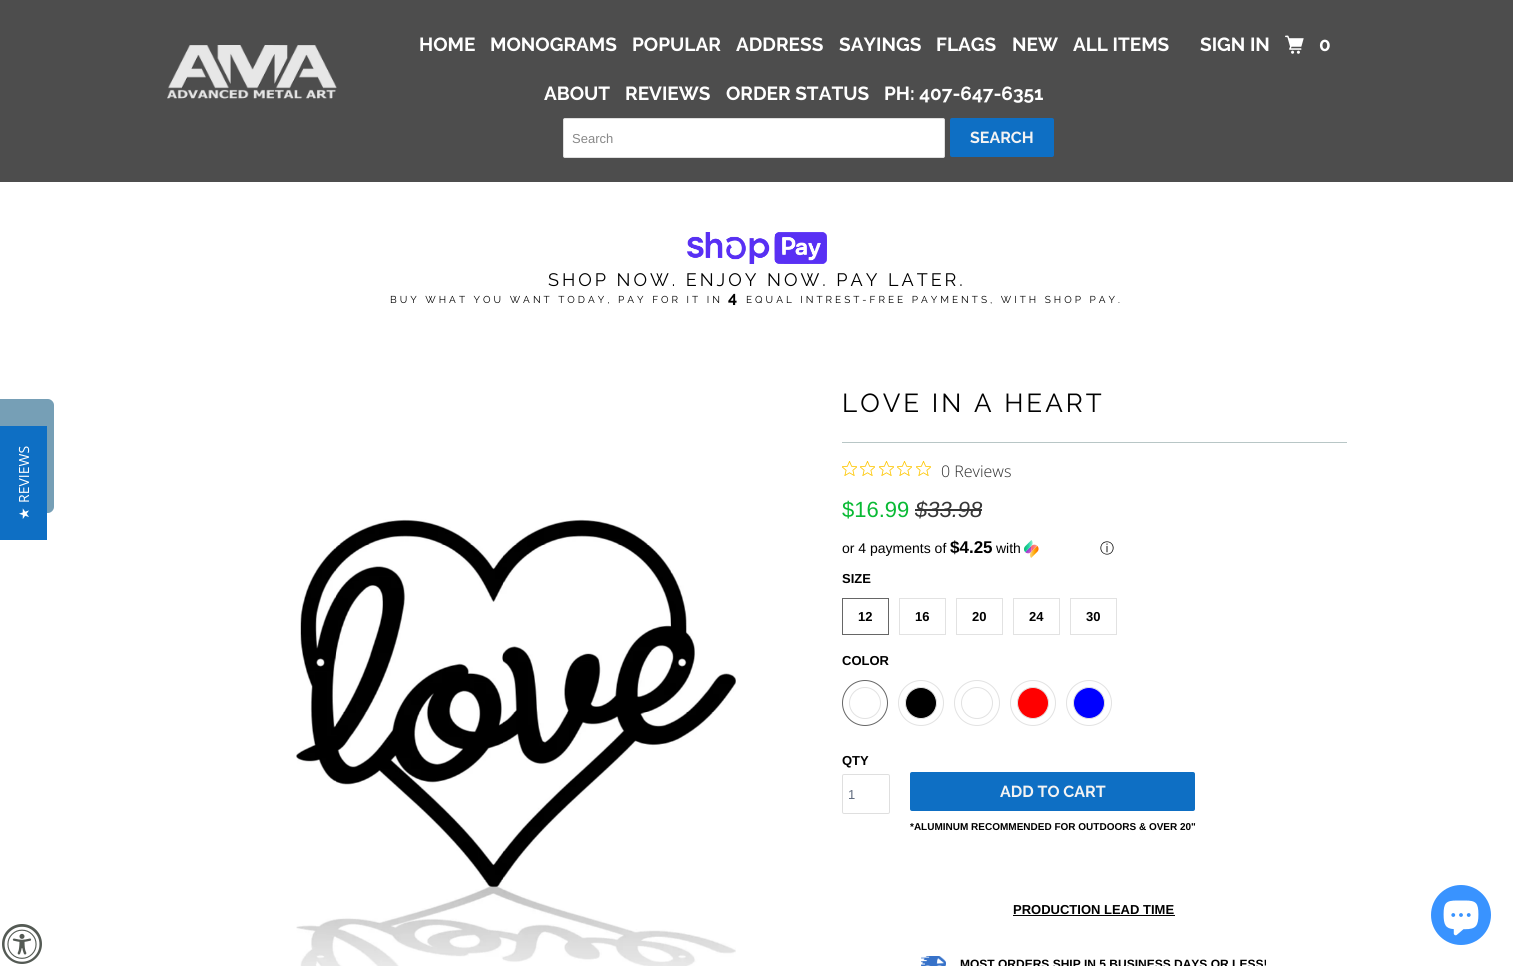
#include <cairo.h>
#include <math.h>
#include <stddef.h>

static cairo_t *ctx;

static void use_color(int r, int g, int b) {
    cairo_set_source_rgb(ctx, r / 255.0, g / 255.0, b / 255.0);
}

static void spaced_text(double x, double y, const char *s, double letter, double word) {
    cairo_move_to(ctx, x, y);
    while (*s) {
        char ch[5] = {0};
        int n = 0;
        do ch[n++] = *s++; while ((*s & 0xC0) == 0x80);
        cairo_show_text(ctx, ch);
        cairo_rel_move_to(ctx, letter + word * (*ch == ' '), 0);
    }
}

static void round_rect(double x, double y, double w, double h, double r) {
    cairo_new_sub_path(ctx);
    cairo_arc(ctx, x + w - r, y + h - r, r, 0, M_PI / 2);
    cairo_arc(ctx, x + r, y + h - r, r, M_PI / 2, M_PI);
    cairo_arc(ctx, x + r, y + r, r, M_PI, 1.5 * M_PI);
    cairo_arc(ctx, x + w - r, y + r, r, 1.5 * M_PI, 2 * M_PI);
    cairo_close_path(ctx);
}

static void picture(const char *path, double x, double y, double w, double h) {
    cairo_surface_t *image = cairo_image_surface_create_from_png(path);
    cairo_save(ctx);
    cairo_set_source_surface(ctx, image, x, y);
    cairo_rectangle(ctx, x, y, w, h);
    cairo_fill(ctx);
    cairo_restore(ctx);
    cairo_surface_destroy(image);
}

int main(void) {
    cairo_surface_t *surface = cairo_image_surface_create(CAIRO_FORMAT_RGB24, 1513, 966);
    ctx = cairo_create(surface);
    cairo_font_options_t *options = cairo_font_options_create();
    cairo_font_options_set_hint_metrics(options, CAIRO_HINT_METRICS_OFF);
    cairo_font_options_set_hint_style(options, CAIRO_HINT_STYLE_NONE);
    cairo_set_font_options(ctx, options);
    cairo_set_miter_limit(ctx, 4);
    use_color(255, 255, 255);
    cairo_paint(ctx);
    use_color(118, 159, 182);
    cairo_new_path(ctx);
    cairo_move_to(ctx, 0, 513);
    cairo_line_to(ctx, 0, 399);
    cairo_line_to(ctx, 48, 399);
    cairo_curve_to(ctx, 51, 399, 54, 402, 54, 405);
    cairo_line_to(ctx, 54, 507);
    cairo_curve_to(ctx, 54, 510, 51, 513, 48, 513);
    cairo_close_path(ctx);
    cairo_fill(ctx);
    use_color(77, 77, 77);
    cairo_rectangle(ctx, 0, 0, 1513, 182);
    cairo_fill(ctx);
    picture("img1.png", 167, 45, 170, 54);
    cairo_select_font_face(ctx, "Raleway", CAIRO_FONT_SLANT_NORMAL, CAIRO_FONT_WEIGHT_BOLD);
    cairo_set_font_size(ctx, 19);
    use_color(255, 255, 255);
    cairo_move_to(ctx, 419, 51);
    cairo_show_text(ctx, "HOME");
    cairo_move_to(ctx, 490, 51);
    cairo_show_text(ctx, "MONOGRAMS");
    cairo_move_to(ctx, 632, 51);
    cairo_show_text(ctx, "POPULAR");
    cairo_move_to(ctx, 736, 51);
    cairo_show_text(ctx, "ADDRESS");
    cairo_move_to(ctx, 839, 51);
    cairo_show_text(ctx, "SAYINGS");
    cairo_move_to(ctx, 936, 51);
    cairo_show_text(ctx, "FLAGS");
    cairo_move_to(ctx, 1012, 51);
    cairo_show_text(ctx, "NEW");
    cairo_move_to(ctx, 1073, 51);
    cairo_show_text(ctx, "ALL ITEMS");
    cairo_move_to(ctx, 544, 100);
    cairo_show_text(ctx, "ABOUT");
    cairo_move_to(ctx, 625, 100);
    cairo_show_text(ctx, "REVIEWS");
    cairo_move_to(ctx, 726, 100);
    cairo_show_text(ctx, "ORDER STATUS");
    cairo_move_to(ctx, 884, 100);
    cairo_show_text(ctx, "PH: 407-647-6351");
    cairo_move_to(ctx, 1200, 51);
    cairo_show_text(ctx, "SIGN IN");
    picture("img2.png", 1285, 35, 19, 19);
    cairo_move_to(ctx, 1319, 51);
    cairo_show_text(ctx, "0");
    round_rect(563.5, 118.5, 381, 39, 1.5);
    cairo_fill_preserve(ctx);
    use_color(223, 223, 223);
    cairo_set_line_width(ctx, 1);
    cairo_stroke(ctx);
    cairo_select_font_face(ctx, "Liberation Sans", CAIRO_FONT_SLANT_NORMAL, CAIRO_FONT_WEIGHT_NORMAL);
    cairo_set_font_size(ctx, 13);
    use_color(136, 136, 136);
    cairo_move_to(ctx, 572, 143);
    cairo_show_text(ctx, "Search");
    use_color(14, 111, 196);
    round_rect(950, 118, 104, 39, 2);
    cairo_fill(ctx);
    cairo_select_font_face(ctx, "Raleway", CAIRO_FONT_SLANT_NORMAL, CAIRO_FONT_WEIGHT_BOLD);
    cairo_set_font_size(ctx, 16);
    use_color(243, 243, 243);
    cairo_move_to(ctx, 970, 143);
    cairo_show_text(ctx, "SEARCH");
    picture("img3.png", 687, 232, 140, 32);
    cairo_select_font_face(ctx, "Raleway", CAIRO_FONT_SLANT_NORMAL, CAIRO_FONT_WEIGHT_NORMAL);
    cairo_set_font_size(ctx, 18);
    use_color(0, 0, 0);
    spaced_text(548, 286, "SHOP NOW. ENJOY NOW. PAY LATER.", 3, 0);
    cairo_set_font_size(ctx, 10);
    spaced_text(390, 303, "BUY WHAT YOU WANT TODAY, PAY FOR IT IN", 3, 0);
    cairo_select_font_face(ctx, "Raleway", CAIRO_FONT_SLANT_NORMAL, CAIRO_FONT_WEIGHT_BOLD);
    cairo_set_font_size(ctx, 16);
    spaced_text(728, 303, "4", 3, 0);
    cairo_select_font_face(ctx, "Raleway", CAIRO_FONT_SLANT_NORMAL, CAIRO_FONT_WEIGHT_NORMAL);
    cairo_set_font_size(ctx, 10);
    spaced_text(746, 303, "EQUAL INTREST-FREE PAYMENTS, WITH SHOP PAY.", 3, 0);
    picture("img4.png", 296, 519, 440, 447);
    cairo_set_font_size(ctx, 26);
    spaced_text(842, 412, "LOVE IN A HEART", 3, 0);
    use_color(184, 198, 198);
    cairo_rectangle(ctx, 842, 442, 505, 1);
    cairo_fill(ctx);
    picture("img5.png", 842, 461, 15, 15);
    picture("img5.png", 860, 461, 15, 15);
    picture("img5.png", 879, 461, 15, 15);
    picture("img5.png", 897, 461, 15, 15);
    picture("img5.png", 916, 461, 15, 15);
    cairo_select_font_face(ctx, "Open Sans Light", CAIRO_FONT_SLANT_NORMAL, CAIRO_FONT_WEIGHT_NORMAL);
    cairo_set_font_size(ctx, 16);
    use_color(44, 44, 44);
    cairo_move_to(ctx, 941, 477);
    cairo_show_text(ctx, "0 Reviews");
    cairo_select_font_face(ctx, "Liberation Sans", CAIRO_FONT_SLANT_NORMAL, CAIRO_FONT_WEIGHT_NORMAL);
    cairo_set_font_size(ctx, 22);
    use_color(9, 186, 52);
    cairo_move_to(ctx, 842, 517);
    cairo_show_text(ctx, "$16.99");
    cairo_select_font_face(ctx, "Liberation Sans", CAIRO_FONT_SLANT_ITALIC, CAIRO_FONT_WEIGHT_NORMAL);
    use_color(54, 54, 54);
    cairo_move_to(ctx, 915, 517);
    cairo_show_text(ctx, "$33.98");
    cairo_rectangle(ctx, 915, 509, 67, 2);
    cairo_fill(ctx);
    cairo_select_font_face(ctx, "Liberation Sans", CAIRO_FONT_SLANT_NORMAL, CAIRO_FONT_WEIGHT_NORMAL);
    cairo_set_font_size(ctx, 14);
    use_color(0, 0, 0);
    cairo_move_to(ctx, 842, 553);
    cairo_show_text(ctx, "or 4 payments of");
    cairo_select_font_face(ctx, "Liberation Sans", CAIRO_FONT_SLANT_NORMAL, CAIRO_FONT_WEIGHT_BOLD);
    cairo_set_font_size(ctx, 17);
    cairo_move_to(ctx, 950, 553);
    cairo_show_text(ctx, "$4.25");
    cairo_select_font_face(ctx, "Liberation Sans", CAIRO_FONT_SLANT_NORMAL, CAIRO_FONT_WEIGHT_NORMAL);
    cairo_set_font_size(ctx, 14);
    cairo_move_to(ctx, 996, 553);
    cairo_show_text(ctx, "with");
    picture("img6.png", 1024, 540, 15, 18);
    cairo_select_font_face(ctx, "WenQuanYi Zen Hei Medium", CAIRO_FONT_SLANT_NORMAL, CAIRO_FONT_WEIGHT_NORMAL);
    cairo_move_to(ctx, 1100, 553);
    cairo_show_text(ctx, "ⓘ");
    cairo_select_font_face(ctx, "Liberation Sans", CAIRO_FONT_SLANT_NORMAL, CAIRO_FONT_WEIGHT_BOLD);
    cairo_set_font_size(ctx, 13);
    cairo_move_to(ctx, 842, 583);
    cairo_show_text(ctx, "SIZE");
    cairo_rectangle(ctx, 842.5, 598.5, 46, 36);
    use_color(102, 102, 102);
    cairo_stroke(ctx);
    use_color(0, 0, 0);
    cairo_move_to(ctx, 858, 621);
    cairo_show_text(ctx, "12");
    cairo_rectangle(ctx, 899.5, 598.5, 46, 36);
    use_color(226, 226, 226);
    cairo_stroke(ctx);
    use_color(0, 0, 0);
    cairo_move_to(ctx, 915, 621);
    cairo_show_text(ctx, "16");
    cairo_rectangle(ctx, 956.5, 598.5, 46, 36);
    use_color(226, 226, 226);
    cairo_stroke(ctx);
    use_color(0, 0, 0);
    cairo_move_to(ctx, 972, 621);
    cairo_show_text(ctx, "20");
    cairo_rectangle(ctx, 1013.5, 598.5, 46, 36);
    use_color(226, 226, 226);
    cairo_stroke(ctx);
    use_color(0, 0, 0);
    cairo_move_to(ctx, 1029, 621);
    cairo_show_text(ctx, "24");
    cairo_rectangle(ctx, 1070.5, 598.5, 46, 36);
    use_color(226, 226, 226);
    cairo_stroke(ctx);
    use_color(0, 0, 0);
    cairo_move_to(ctx, 1086, 621);
    cairo_show_text(ctx, "30");
    cairo_move_to(ctx, 842, 665);
    cairo_show_text(ctx, "COLOR");
    cairo_new_path(ctx);
    cairo_arc(ctx, 865, 703, 22.5, 0, 2 * M_PI);
    use_color(102, 102, 102);
    cairo_stroke(ctx);
    cairo_arc(ctx, 865, 703, 15.5, 0, 2 * M_PI);
    use_color(226, 226, 226);
    cairo_stroke(ctx);
    cairo_arc(ctx, 921, 703, 22.5, 0, 2 * M_PI);
    cairo_stroke(ctx);
    use_color(0, 0, 0);
    cairo_arc(ctx, 921, 703, 15.5, 0, 2 * M_PI);
    cairo_fill_preserve(ctx);
    use_color(226, 226, 226);
    cairo_stroke(ctx);
    cairo_arc(ctx, 977, 703, 22.5, 0, 2 * M_PI);
    cairo_stroke(ctx);
    cairo_arc(ctx, 977, 703, 15.5, 0, 2 * M_PI);
    cairo_stroke(ctx);
    cairo_arc(ctx, 1033, 703, 22.5, 0, 2 * M_PI);
    cairo_stroke(ctx);
    use_color(255, 0, 0);
    cairo_arc(ctx, 1033, 703, 15.5, 0, 2 * M_PI);
    cairo_fill_preserve(ctx);
    use_color(226, 226, 226);
    cairo_stroke(ctx);
    cairo_arc(ctx, 1089, 703, 22.5, 0, 2 * M_PI);
    cairo_stroke(ctx);
    use_color(0, 0, 255);
    cairo_arc(ctx, 1089, 703, 15.5, 0, 2 * M_PI);
    cairo_fill_preserve(ctx);
    use_color(226, 226, 226);
    cairo_stroke(ctx);
    use_color(0, 0, 0);
    cairo_move_to(ctx, 842, 765);
    cairo_show_text(ctx, "QTY");
    round_rect(842.5, 774.5, 47, 39, 1.5);
    use_color(223, 223, 223);
    cairo_stroke(ctx);
    cairo_select_font_face(ctx, "Liberation Sans", CAIRO_FONT_SLANT_NORMAL, CAIRO_FONT_WEIGHT_NORMAL);
    use_color(95, 106, 125);
    cairo_move_to(ctx, 848, 799);
    cairo_show_text(ctx, "1");
    use_color(14, 111, 196);
    round_rect(910, 772, 285, 39, 2);
    cairo_fill(ctx);
    cairo_select_font_face(ctx, "Raleway", CAIRO_FONT_SLANT_NORMAL, CAIRO_FONT_WEIGHT_BOLD);
    cairo_set_font_size(ctx, 16);
    use_color(243, 243, 243);
    cairo_move_to(ctx, 1000, 797);
    cairo_show_text(ctx, "ADD TO CART");
    cairo_select_font_face(ctx, "Liberation Sans", CAIRO_FONT_SLANT_NORMAL, CAIRO_FONT_WEIGHT_BOLD);
    cairo_set_font_size(ctx, 10);
    use_color(0, 0, 0);
    cairo_move_to(ctx, 910, 830);
    cairo_show_text(ctx, "*ALUMINUM RECOMMENDED FOR OUTDOORS & OVER 20\"");
    cairo_set_font_size(ctx, 13);
    cairo_move_to(ctx, 1013, 914);
    cairo_show_text(ctx, "PRODUCTION LEAD TIME");
    cairo_rectangle(ctx, 1013, 915, 162, 1);
    cairo_fill(ctx);
    picture("img7.png", 921, 956, 25, 10);
    cairo_set_font_size(ctx, 12);
    cairo_move_to(ctx, 960, 968);
    cairo_show_text(ctx, "MOST ORDERS SHIP IN 5 BUSINESS DAYS OR LESS!");
    use_color(14, 111, 196);
    cairo_rectangle(ctx, 0, 426, 47, 114);
    cairo_fill(ctx);
    cairo_select_font_face(ctx, "Open Sans", CAIRO_FONT_SLANT_NORMAL, CAIRO_FONT_WEIGHT_NORMAL);
    cairo_set_font_size(ctx, 14);
    use_color(255, 255, 255);
    cairo_save(ctx);
    cairo_translate(ctx, 29, 503);
    cairo_rotate(ctx, -90 * M_PI / 180);
    cairo_move_to(ctx, 0, 0);
    cairo_show_text(ctx, "REVIEWS");
    cairo_restore(ctx);
    cairo_select_font_face(ctx, "DejaVu Sans", CAIRO_FONT_SLANT_NORMAL, CAIRO_FONT_WEIGHT_NORMAL);
    cairo_save(ctx);
    cairo_translate(ctx, 29, 520);
    cairo_rotate(ctx, -90 * M_PI / 180);
    cairo_move_to(ctx, 0, 0);
    cairo_show_text(ctx, "★");
    cairo_restore(ctx);
    use_color(84, 90, 84);
    cairo_new_path(ctx);
    cairo_arc(ctx, 22, 944, 20, 0, 2 * M_PI);
    cairo_fill(ctx);
    picture("img8.png", 4, 926, 36, 36);
    use_color(57, 147, 255);
    cairo_arc(ctx, 1461, 915, 30, 0, 2 * M_PI);
    cairo_fill(ctx);
    picture("img9.png", 1443, 900, 36, 36);
    cairo_surface_write_to_png(surface, "result.png");
    cairo_font_options_destroy(options);
    cairo_destroy(ctx);
    cairo_surface_destroy(surface);
    return 0;
}
